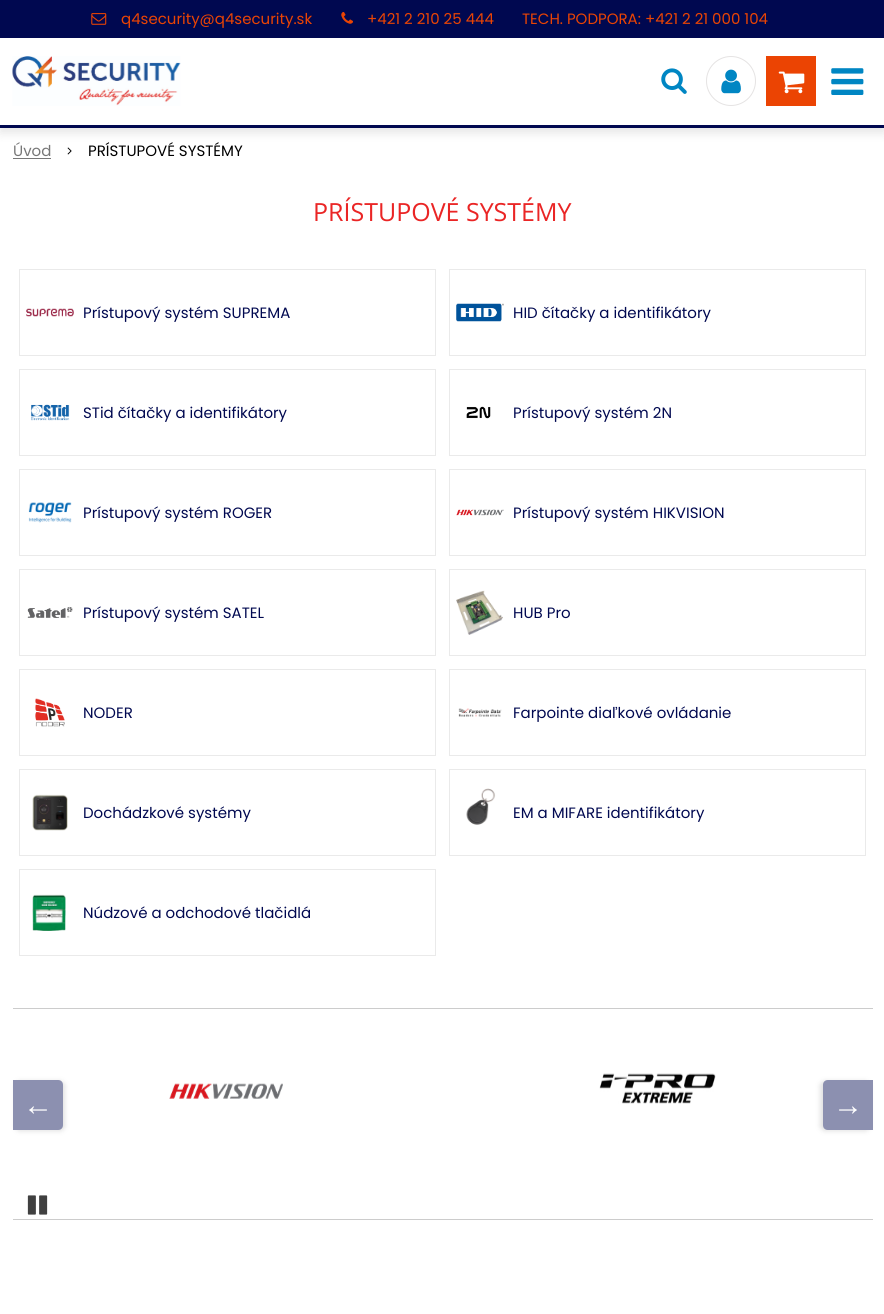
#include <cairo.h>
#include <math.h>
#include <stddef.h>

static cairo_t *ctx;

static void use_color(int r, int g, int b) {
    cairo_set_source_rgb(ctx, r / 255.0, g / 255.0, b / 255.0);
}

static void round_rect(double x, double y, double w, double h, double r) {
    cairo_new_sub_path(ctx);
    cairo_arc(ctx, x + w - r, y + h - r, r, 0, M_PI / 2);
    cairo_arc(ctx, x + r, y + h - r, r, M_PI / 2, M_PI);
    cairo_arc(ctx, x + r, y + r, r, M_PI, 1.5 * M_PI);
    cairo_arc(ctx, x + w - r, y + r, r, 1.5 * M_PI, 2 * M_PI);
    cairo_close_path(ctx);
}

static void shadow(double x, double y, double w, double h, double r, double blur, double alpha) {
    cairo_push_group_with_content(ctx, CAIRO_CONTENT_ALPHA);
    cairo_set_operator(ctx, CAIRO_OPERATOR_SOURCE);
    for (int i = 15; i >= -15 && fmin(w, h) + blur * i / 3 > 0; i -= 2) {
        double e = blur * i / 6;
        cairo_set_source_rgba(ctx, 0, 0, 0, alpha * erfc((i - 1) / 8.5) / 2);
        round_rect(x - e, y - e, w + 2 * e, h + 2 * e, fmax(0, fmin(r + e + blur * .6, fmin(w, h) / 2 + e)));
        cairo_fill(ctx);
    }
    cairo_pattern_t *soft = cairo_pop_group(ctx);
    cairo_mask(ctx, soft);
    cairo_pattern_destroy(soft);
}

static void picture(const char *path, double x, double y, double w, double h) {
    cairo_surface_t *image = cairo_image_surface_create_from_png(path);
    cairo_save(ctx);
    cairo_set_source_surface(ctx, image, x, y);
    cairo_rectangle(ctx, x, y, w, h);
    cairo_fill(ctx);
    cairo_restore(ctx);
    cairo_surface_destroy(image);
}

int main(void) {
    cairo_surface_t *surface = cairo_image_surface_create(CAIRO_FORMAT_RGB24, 884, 1314);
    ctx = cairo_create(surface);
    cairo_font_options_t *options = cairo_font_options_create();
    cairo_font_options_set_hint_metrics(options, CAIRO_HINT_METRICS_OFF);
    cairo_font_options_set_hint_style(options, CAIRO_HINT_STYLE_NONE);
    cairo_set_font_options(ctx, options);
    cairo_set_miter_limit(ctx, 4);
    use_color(255, 255, 255);
    cairo_paint(ctx);
    picture("img8.png", 67, 147, 5, 8);
    use_color(0, 0, 0);
    shadow(0, 5, 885, 128, 0, 5, 0.1);
    use_color(255, 255, 255);
    cairo_rectangle(ctx, 0, 38, 884, 87);
    cairo_fill(ctx);
    use_color(0, 8, 80);
    cairo_rectangle(ctx, 0, 125, 884, 3);
    cairo_fill(ctx);
    cairo_rectangle(ctx, 0, 0, 884, 38);
    cairo_fill(ctx);
    picture("img1.png", 91, 13, 16, 12);
    cairo_select_font_face(ctx, "Poppins", CAIRO_FONT_SLANT_NORMAL, CAIRO_FONT_WEIGHT_NORMAL);
    cairo_set_font_size(ctx, 15);
    use_color(235, 68, 3);
    cairo_move_to(ctx, 121, 24);
    cairo_show_text(ctx, "q4security@q4security.sk");
    picture("img2.png", 341, 12, 12, 12);
    cairo_move_to(ctx, 367, 24);
    cairo_show_text(ctx, "+421 2 210 25 444");
    cairo_move_to(ctx, 522, 24);
    cairo_show_text(ctx, "TECH. PODPORA: +421 2 21 000 104");
    picture("img3.png", 12, 56, 169, 50);
    picture("img4.png", 661, 68, 26, 26);
    cairo_arc(ctx, 731, 81, 24.5, 0, 2 * M_PI);
    use_color(229, 227, 227);
    cairo_set_line_width(ctx, 1);
    cairo_stroke(ctx);
    picture("img5.png", 721, 69, 20, 25);
    use_color(235, 68, 3);
    cairo_rectangle(ctx, 766, 56, 50, 50);
    cairo_fill(ctx);
    picture("img6.png", 778, 71, 27, 23);
    picture("img7.png", 831, 68, 33, 27);
    use_color(119, 119, 119);
    cairo_move_to(ctx, 13, 156);
    cairo_show_text(ctx, "Úvod");
    cairo_rectangle(ctx, 13, 158, 38, 1);
    cairo_fill(ctx);
    use_color(0, 0, 0);
    cairo_move_to(ctx, 88, 156);
    cairo_show_text(ctx, "PRÍSTUPOVÉ SYSTÉMY");
    cairo_select_font_face(ctx, "Open Sans", CAIRO_FONT_SLANT_NORMAL, CAIRO_FONT_WEIGHT_NORMAL);
    cairo_set_font_size(ctx, 25);
    use_color(234, 37, 37);
    cairo_move_to(ctx, 313, 221);
    cairo_show_text(ctx, "PRÍSTUPOVÉ SYSTÉMY");
    cairo_rectangle(ctx, 19.5, 269.5, 416, 86);
    use_color(234, 234, 234);
    cairo_stroke(ctx);
    picture("img9.png", 26, 308, 48, 9);
    cairo_select_font_face(ctx, "Poppins", CAIRO_FONT_SLANT_NORMAL, CAIRO_FONT_WEIGHT_NORMAL);
    cairo_set_font_size(ctx, 15);
    use_color(0, 8, 80);
    cairo_move_to(ctx, 83, 318);
    cairo_show_text(ctx, "Prístupový systém SUPREMA");
    cairo_rectangle(ctx, 449.5, 269.5, 416, 86);
    use_color(234, 234, 234);
    cairo_stroke(ctx);
    picture("img10.png", 456, 303, 48, 19);
    use_color(0, 8, 80);
    cairo_move_to(ctx, 513, 318);
    cairo_show_text(ctx, "HID čítačky a identifikátory");
    cairo_rectangle(ctx, 19.5, 369.5, 416, 86);
    use_color(234, 234, 234);
    cairo_stroke(ctx);
    picture("img11.png", 31, 404, 39, 17);
    use_color(0, 8, 80);
    cairo_move_to(ctx, 83, 418);
    cairo_show_text(ctx, "STid čítačky a identifikátory");
    cairo_rectangle(ctx, 449.5, 369.5, 416, 86);
    use_color(234, 234, 234);
    cairo_stroke(ctx);
    picture("img12.png", 466, 406, 25, 13);
    use_color(0, 8, 80);
    cairo_move_to(ctx, 513, 418);
    cairo_show_text(ctx, "Prístupový systém 2N");
    cairo_rectangle(ctx, 19.5, 469.5, 416, 86);
    use_color(234, 234, 234);
    cairo_stroke(ctx);
    picture("img13.png", 28, 502, 44, 21);
    use_color(0, 8, 80);
    cairo_move_to(ctx, 83, 518);
    cairo_show_text(ctx, "Prístupový systém ROGER");
    cairo_rectangle(ctx, 449.5, 469.5, 416, 86);
    use_color(234, 234, 234);
    cairo_stroke(ctx);
    picture("img14.png", 456, 509, 48, 7);
    use_color(0, 8, 80);
    cairo_move_to(ctx, 513, 518);
    cairo_show_text(ctx, "Prístupový systém HIKVISION");
    cairo_rectangle(ctx, 19.5, 569.5, 416, 86);
    use_color(234, 234, 234);
    cairo_stroke(ctx);
    picture("img15.png", 27, 606, 46, 12);
    use_color(0, 8, 80);
    cairo_move_to(ctx, 83, 618);
    cairo_show_text(ctx, "Prístupový systém SATEL");
    cairo_rectangle(ctx, 449.5, 569.5, 416, 86);
    use_color(234, 234, 234);
    cairo_stroke(ctx);
    picture("img16.png", 456, 590, 47, 45);
    use_color(0, 8, 80);
    cairo_move_to(ctx, 513, 618);
    cairo_show_text(ctx, "HUB Pro");
    cairo_rectangle(ctx, 19.5, 669.5, 416, 86);
    use_color(234, 234, 234);
    cairo_stroke(ctx);
    picture("img17.png", 35, 698, 30, 29);
    use_color(0, 8, 80);
    cairo_move_to(ctx, 83, 718);
    cairo_show_text(ctx, "NODER");
    cairo_rectangle(ctx, 449.5, 669.5, 416, 86);
    use_color(234, 234, 234);
    cairo_stroke(ctx);
    picture("img18.png", 458, 708, 44, 9);
    use_color(0, 8, 80);
    cairo_move_to(ctx, 513, 718);
    cairo_show_text(ctx, "Farpointe diaľkové ovládanie");
    cairo_rectangle(ctx, 19.5, 769.5, 416, 86);
    use_color(234, 234, 234);
    cairo_stroke(ctx);
    picture("img19.png", 32, 794, 36, 37);
    use_color(0, 8, 80);
    cairo_move_to(ctx, 83, 818);
    cairo_show_text(ctx, "Dochádzkové systémy");
    cairo_rectangle(ctx, 449.5, 769.5, 416, 86);
    use_color(234, 234, 234);
    cairo_stroke(ctx);
    picture("img20.png", 466, 788, 30, 37);
    use_color(0, 8, 80);
    cairo_move_to(ctx, 513, 818);
    cairo_show_text(ctx, "EM a MIFARE identifikátory");
    cairo_rectangle(ctx, 19.5, 869.5, 416, 86);
    use_color(234, 234, 234);
    cairo_stroke(ctx);
    picture("img21.png", 32, 894, 34, 37);
    use_color(0, 8, 80);
    cairo_move_to(ctx, 83, 918);
    cairo_show_text(ctx, "Núdzové a odchodové tlačidlá");
    use_color(204, 204, 204);
    cairo_rectangle(ctx, 13, 1008, 860, 1);
    cairo_fill(ctx);
    picture("img22.png", 169, 1083, 114, 16);
    picture("img23.png", 599, 1073, 117, 31);
    use_color(102, 102, 102);
    shadow(15, 1081, 50, 50, 5, 2.5, 0.2);
    use_color(140, 144, 176);
    cairo_new_path(ctx);
    cairo_move_to(ctx, 13, 1080);
    cairo_line_to(ctx, 58, 1080);
    cairo_curve_to(ctx, 61, 1080, 63, 1082, 63, 1085);
    cairo_line_to(ctx, 63, 1125);
    cairo_curve_to(ctx, 63, 1128, 61, 1130, 58, 1130);
    cairo_line_to(ctx, 13, 1130);
    cairo_close_path(ctx);
    cairo_fill(ctx);
    cairo_select_font_face(ctx, "Liberation Sans", CAIRO_FONT_SLANT_NORMAL, CAIRO_FONT_WEIGHT_NORMAL);
    cairo_set_font_size(ctx, 30);
    use_color(255, 255, 255);
    cairo_move_to(ctx, 23, 1115);
    cairo_show_text(ctx, "←");
    use_color(102, 102, 102);
    shadow(820, 1081, 50, 50, 5, 2.5, 0.2);
    use_color(140, 144, 176);
    cairo_new_path(ctx);
    cairo_move_to(ctx, 828, 1080);
    cairo_line_to(ctx, 873, 1080);
    cairo_line_to(ctx, 873, 1130);
    cairo_line_to(ctx, 828, 1130);
    cairo_curve_to(ctx, 825, 1130, 823, 1128, 823, 1125);
    cairo_line_to(ctx, 823, 1085);
    cairo_curve_to(ctx, 823, 1082, 825, 1080, 828, 1080);
    cairo_close_path(ctx);
    cairo_fill(ctx);
    use_color(255, 255, 255);
    cairo_move_to(ctx, 833, 1115);
    cairo_show_text(ctx, "→");
    picture("img24.png", 27, 1195, 21, 20);
    use_color(204, 204, 204);
    cairo_rectangle(ctx, 13, 1219, 860, 1);
    cairo_fill(ctx);
    cairo_surface_write_to_png(surface, "result.png");
    cairo_font_options_destroy(options);
    cairo_destroy(ctx);
    cairo_surface_destroy(surface);
    return 0;
}
